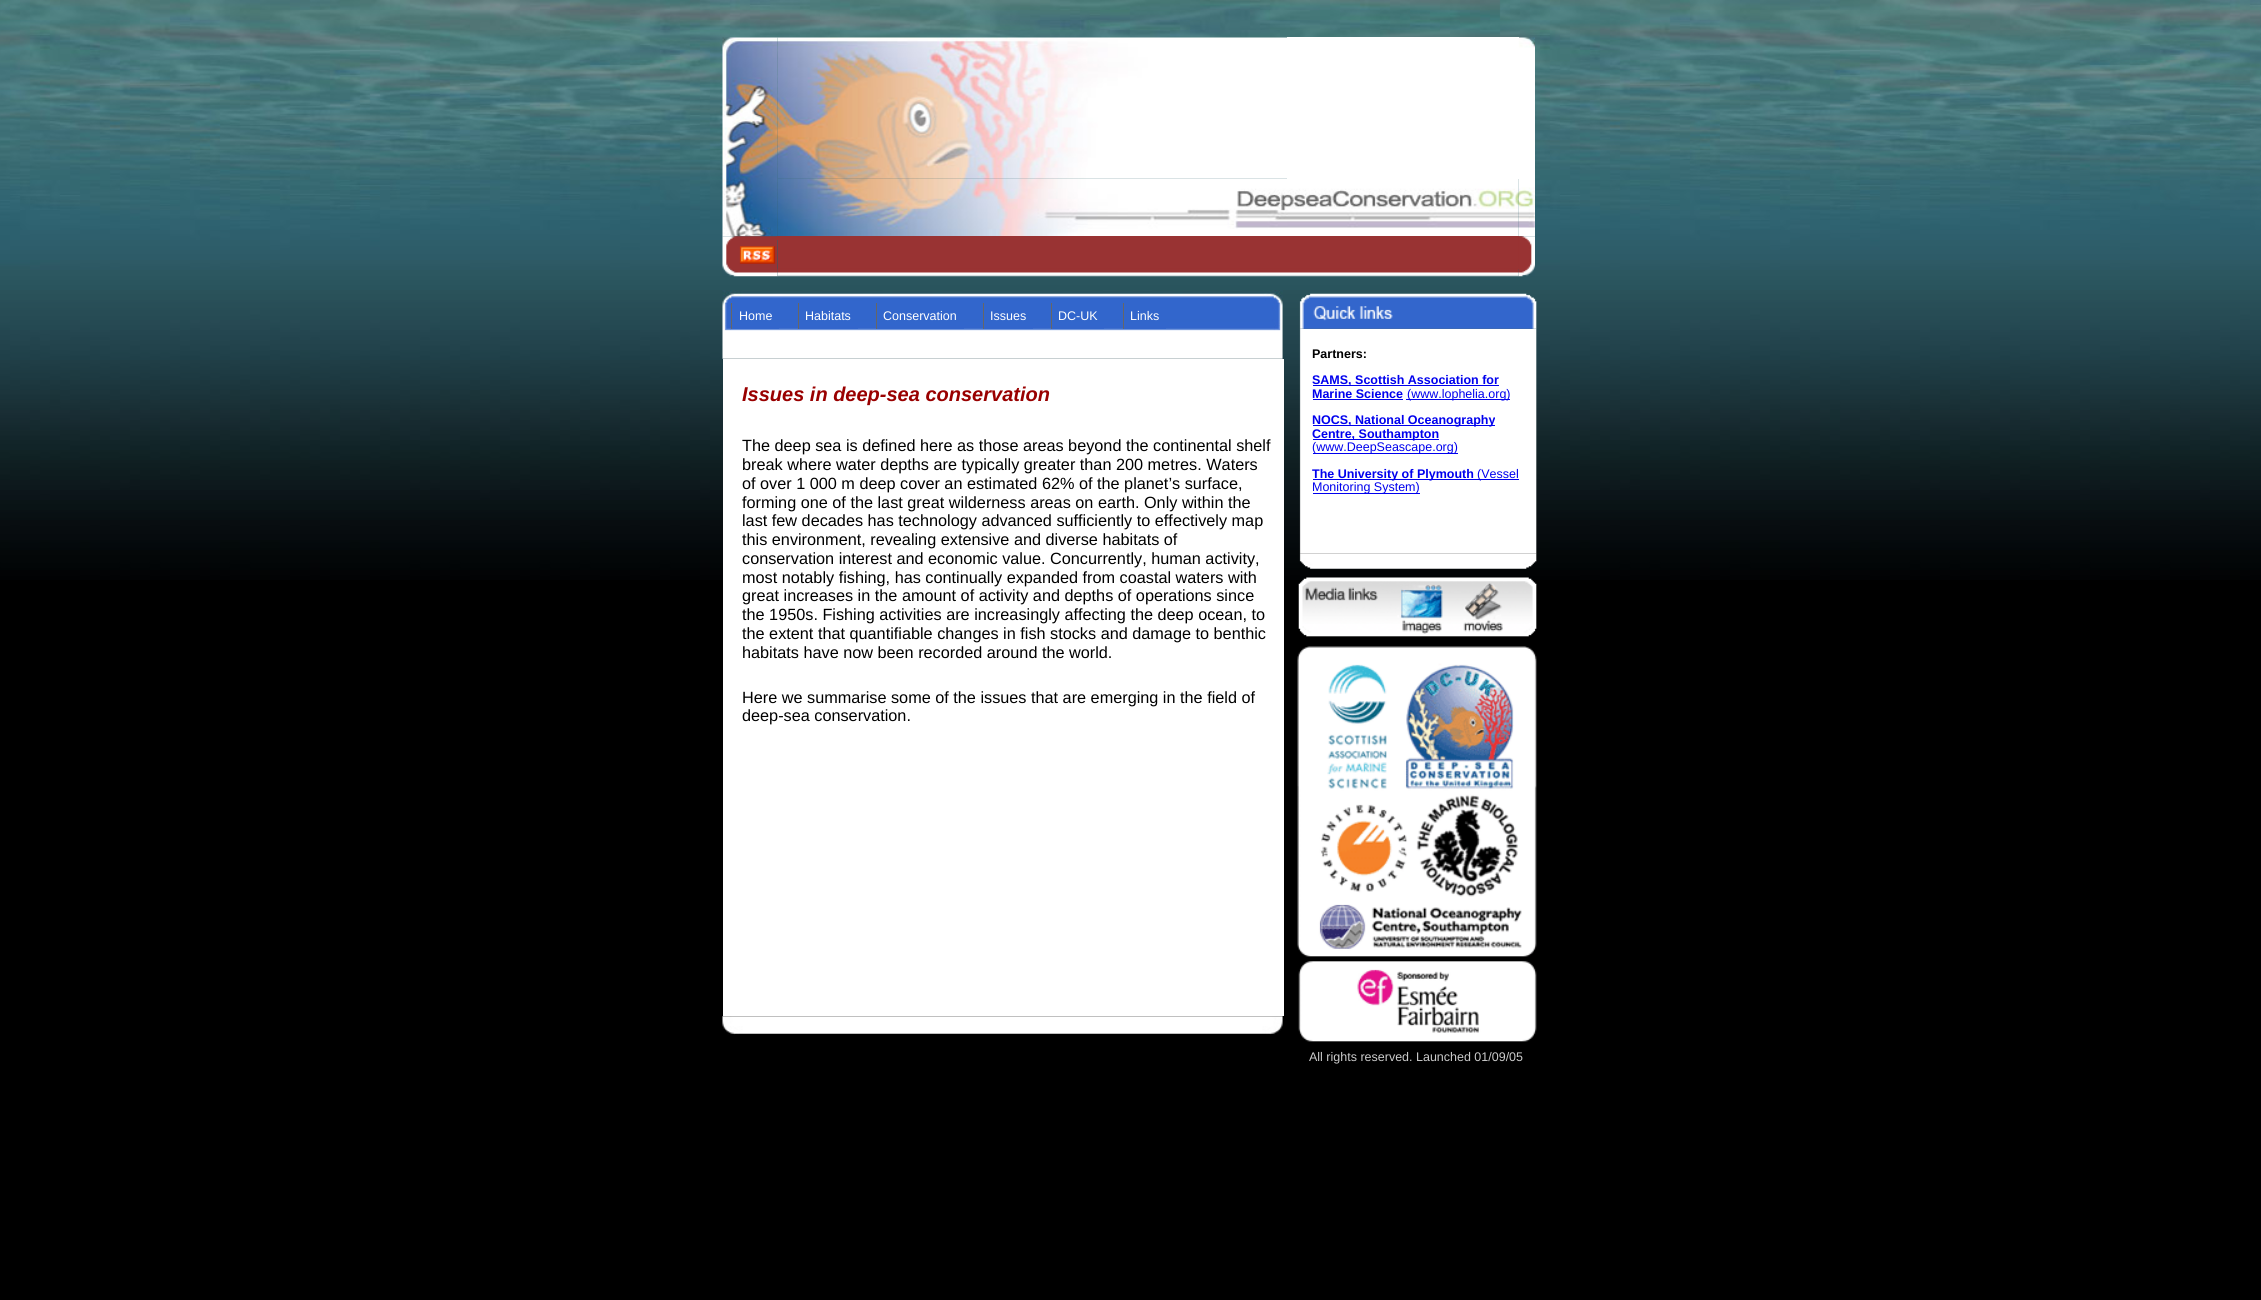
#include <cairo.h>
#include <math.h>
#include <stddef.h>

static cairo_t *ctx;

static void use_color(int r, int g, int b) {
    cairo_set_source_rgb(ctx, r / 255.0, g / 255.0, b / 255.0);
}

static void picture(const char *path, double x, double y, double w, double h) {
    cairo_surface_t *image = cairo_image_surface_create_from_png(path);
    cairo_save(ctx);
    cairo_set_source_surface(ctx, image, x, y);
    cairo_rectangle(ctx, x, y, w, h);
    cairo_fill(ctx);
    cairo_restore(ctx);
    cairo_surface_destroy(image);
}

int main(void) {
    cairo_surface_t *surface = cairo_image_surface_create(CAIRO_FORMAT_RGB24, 2261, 1300);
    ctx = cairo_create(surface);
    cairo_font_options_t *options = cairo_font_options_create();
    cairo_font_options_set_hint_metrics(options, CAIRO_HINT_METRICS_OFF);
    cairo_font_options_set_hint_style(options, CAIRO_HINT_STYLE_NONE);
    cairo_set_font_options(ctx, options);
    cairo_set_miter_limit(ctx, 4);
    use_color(0, 0, 0);
    cairo_paint(ctx);
    picture("img1.png", 0, 0, 2261, 580);
    picture("img2.png", 722, 37, 56, 200);
    picture("img3.png", 777, 37, 510, 142);
    use_color(255, 255, 255);
    cairo_rectangle(ctx, 1287, 37, 232, 142);
    cairo_fill(ctx);
    picture("img4.png", 1518, 37, 17, 200);
    picture("img5.png", 777, 178, 742, 58);
    picture("img6.png", 722, 236, 56, 41);
    use_color(153, 51, 51);
    cairo_rectangle(ctx, 777, 236, 742, 4);
    cairo_fill(ctx);
    cairo_rectangle(ctx, 778, 240, 741, 29);
    cairo_fill(ctx);
    picture("img7.png", 1518, 236, 17, 41);
    picture("img8.png", 777, 268, 742, 9);
    picture("img9.png", 722, 290, 561, 69);
    use_color(50, 102, 204);
    cairo_rectangle(ctx, 732, 328, 47, 1);
    cairo_fill(ctx);
    use_color(102, 102, 102);
    cairo_rectangle(ctx, 731, 303, 1, 26);
    cairo_fill(ctx);
    cairo_select_font_face(ctx, "Liberation Sans", CAIRO_FONT_SLANT_NORMAL, CAIRO_FONT_WEIGHT_NORMAL);
    cairo_set_font_size(ctx, 12.5);
    use_color(255, 255, 255);
    cairo_move_to(ctx, 739, 320);
    cairo_show_text(ctx, "Home");
    use_color(50, 102, 204);
    cairo_rectangle(ctx, 799, 328, 59, 1);
    cairo_fill(ctx);
    use_color(102, 102, 102);
    cairo_rectangle(ctx, 798, 303, 1, 26);
    cairo_fill(ctx);
    use_color(255, 255, 255);
    cairo_move_to(ctx, 805, 320);
    cairo_show_text(ctx, "Habitats");
    use_color(50, 102, 204);
    cairo_rectangle(ctx, 877, 328, 87, 1);
    cairo_fill(ctx);
    use_color(102, 102, 102);
    cairo_rectangle(ctx, 876, 303, 1, 26);
    cairo_fill(ctx);
    use_color(255, 255, 255);
    cairo_move_to(ctx, 883, 320);
    cairo_show_text(ctx, "Conservation");
    use_color(50, 102, 204);
    cairo_rectangle(ctx, 984, 328, 49, 1);
    cairo_fill(ctx);
    use_color(102, 102, 102);
    cairo_rectangle(ctx, 983, 303, 1, 26);
    cairo_fill(ctx);
    use_color(255, 255, 255);
    cairo_move_to(ctx, 990, 320);
    cairo_show_text(ctx, "Issues");
    use_color(50, 102, 204);
    cairo_rectangle(ctx, 1052, 328, 52, 1);
    cairo_fill(ctx);
    use_color(102, 102, 102);
    cairo_rectangle(ctx, 1051, 303, 1, 26);
    cairo_fill(ctx);
    use_color(255, 255, 255);
    cairo_move_to(ctx, 1058, 320);
    cairo_show_text(ctx, "DC-UK");
    use_color(50, 102, 204);
    cairo_rectangle(ctx, 1124, 328, 42, 1);
    cairo_fill(ctx);
    use_color(102, 102, 102);
    cairo_rectangle(ctx, 1123, 303, 1, 26);
    cairo_fill(ctx);
    use_color(255, 255, 255);
    cairo_move_to(ctx, 1130, 320);
    cairo_show_text(ctx, "Links");
    picture("img11.png", 1299, 328, 238, 226);
    picture("img10.png", 1299, 293, 238, 36);
    cairo_select_font_face(ctx, "Liberation Sans", CAIRO_FONT_SLANT_NORMAL, CAIRO_FONT_WEIGHT_BOLD);
    use_color(0, 0, 0);
    cairo_move_to(ctx, 1312, 358);
    cairo_show_text(ctx, "Partners:");
    use_color(0, 0, 238);
    cairo_rectangle(ctx, 1313, 385, 186, 1);
    cairo_fill(ctx);
    cairo_move_to(ctx, 1312, 384);
    cairo_show_text(ctx, "SAMS, Scottish Association for");
    cairo_move_to(ctx, 1312, 398);
    cairo_show_text(ctx, "Marine Science");
    cairo_rectangle(ctx, 1313, 399, 90, 1);
    cairo_fill(ctx);
    cairo_rectangle(ctx, 1406, 399, 104, 1);
    cairo_fill(ctx);
    cairo_select_font_face(ctx, "Liberation Sans", CAIRO_FONT_SLANT_NORMAL, CAIRO_FONT_WEIGHT_NORMAL);
    cairo_move_to(ctx, 1407, 398);
    cairo_show_text(ctx, "(www.lophelia.org)");
    cairo_rectangle(ctx, 1313, 425, 182, 1);
    cairo_fill(ctx);
    cairo_select_font_face(ctx, "Liberation Sans", CAIRO_FONT_SLANT_NORMAL, CAIRO_FONT_WEIGHT_BOLD);
    cairo_move_to(ctx, 1312, 424);
    cairo_show_text(ctx, "NOCS, National Oceanography");
    cairo_rectangle(ctx, 1313, 439, 126, 1);
    cairo_fill(ctx);
    cairo_move_to(ctx, 1312, 438);
    cairo_show_text(ctx, "Centre, Southampton");
    cairo_rectangle(ctx, 1313, 453, 145, 1);
    cairo_fill(ctx);
    cairo_select_font_face(ctx, "Liberation Sans", CAIRO_FONT_SLANT_NORMAL, CAIRO_FONT_WEIGHT_NORMAL);
    cairo_move_to(ctx, 1312, 451);
    cairo_show_text(ctx, "(www.DeepSeascape.org)");
    cairo_rectangle(ctx, 1313, 479, 206, 1);
    cairo_fill(ctx);
    cairo_select_font_face(ctx, "Liberation Sans", CAIRO_FONT_SLANT_NORMAL, CAIRO_FONT_WEIGHT_BOLD);
    cairo_move_to(ctx, 1312, 478);
    cairo_show_text(ctx, "The University of Plymouth");
    cairo_select_font_face(ctx, "Liberation Sans", CAIRO_FONT_SLANT_NORMAL, CAIRO_FONT_WEIGHT_NORMAL);
    cairo_move_to(ctx, 1477, 478);
    cairo_show_text(ctx, "(Vessel");
    cairo_rectangle(ctx, 1313, 493, 107, 1);
    cairo_fill(ctx);
    cairo_move_to(ctx, 1312, 491);
    cairo_show_text(ctx, "Monitoring System)");
    picture("img12.png", 1299, 553, 238, 16);
    picture("img13.png", 1298, 577, 239, 60);
    picture("img14.png", 1297, 646, 240, 396);
    use_color(204, 204, 204);
    cairo_move_to(ctx, 1309, 1061);
    cairo_show_text(ctx, "All rights reserved. Launched 01/09/05");
    use_color(255, 255, 255);
    cairo_rectangle(ctx, 723, 359, 561, 657);
    cairo_fill(ctx);
    cairo_select_font_face(ctx, "Liberation Sans", CAIRO_FONT_SLANT_ITALIC, CAIRO_FONT_WEIGHT_BOLD);
    cairo_set_font_size(ctx, 20);
    use_color(153, 0, 0);
    cairo_move_to(ctx, 742, 401);
    cairo_show_text(ctx, "Issues in deep-sea conservation");
    cairo_select_font_face(ctx, "Liberation Sans", CAIRO_FONT_SLANT_NORMAL, CAIRO_FONT_WEIGHT_NORMAL);
    cairo_set_font_size(ctx, 16.25);
    use_color(0, 0, 0);
    cairo_move_to(ctx, 742, 451);
    cairo_show_text(ctx, "The deep sea is defined here as those areas beyond the continental shelf");
    cairo_move_to(ctx, 742, 470);
    cairo_show_text(ctx, "break where water depths are typically greater than 200 metres. Waters");
    cairo_move_to(ctx, 742, 489);
    cairo_show_text(ctx, "of over 1 000 m deep cover an estimated 62% of the planet’s surface,");
    cairo_move_to(ctx, 742, 508);
    cairo_show_text(ctx, "forming one of the last great wilderness areas on earth. Only within the");
    cairo_move_to(ctx, 742, 526);
    cairo_show_text(ctx, "last few decades has technology advanced sufficiently to effectively map");
    cairo_move_to(ctx, 742, 545);
    cairo_show_text(ctx, "this environment, revealing extensive and diverse habitats of");
    cairo_move_to(ctx, 742, 564);
    cairo_show_text(ctx, "conservation interest and economic value. Concurrently, human activity,");
    cairo_move_to(ctx, 742, 583);
    cairo_show_text(ctx, "most notably fishing, has continually expanded from coastal waters with");
    cairo_move_to(ctx, 742, 601);
    cairo_show_text(ctx, "great increases in the amount of activity and depths of operations since");
    cairo_move_to(ctx, 742, 620);
    cairo_show_text(ctx, "the 1950s. Fishing activities are increasingly affecting the deep ocean, to");
    cairo_move_to(ctx, 742, 639);
    cairo_show_text(ctx, "the extent that quantifiable changes in fish stocks and damage to benthic");
    cairo_move_to(ctx, 742, 658);
    cairo_show_text(ctx, "habitats have now been recorded around the world.");
    cairo_move_to(ctx, 742, 703);
    cairo_show_text(ctx, "Here we summarise some of the issues that are emerging in the field of");
    cairo_move_to(ctx, 742, 721);
    cairo_show_text(ctx, "deep-sea conservation.");
    picture("img15.png", 722, 1016, 561, 19);
    cairo_surface_write_to_png(surface, "result.png");
    cairo_font_options_destroy(options);
    cairo_destroy(ctx);
    cairo_surface_destroy(surface);
    return 0;
}
